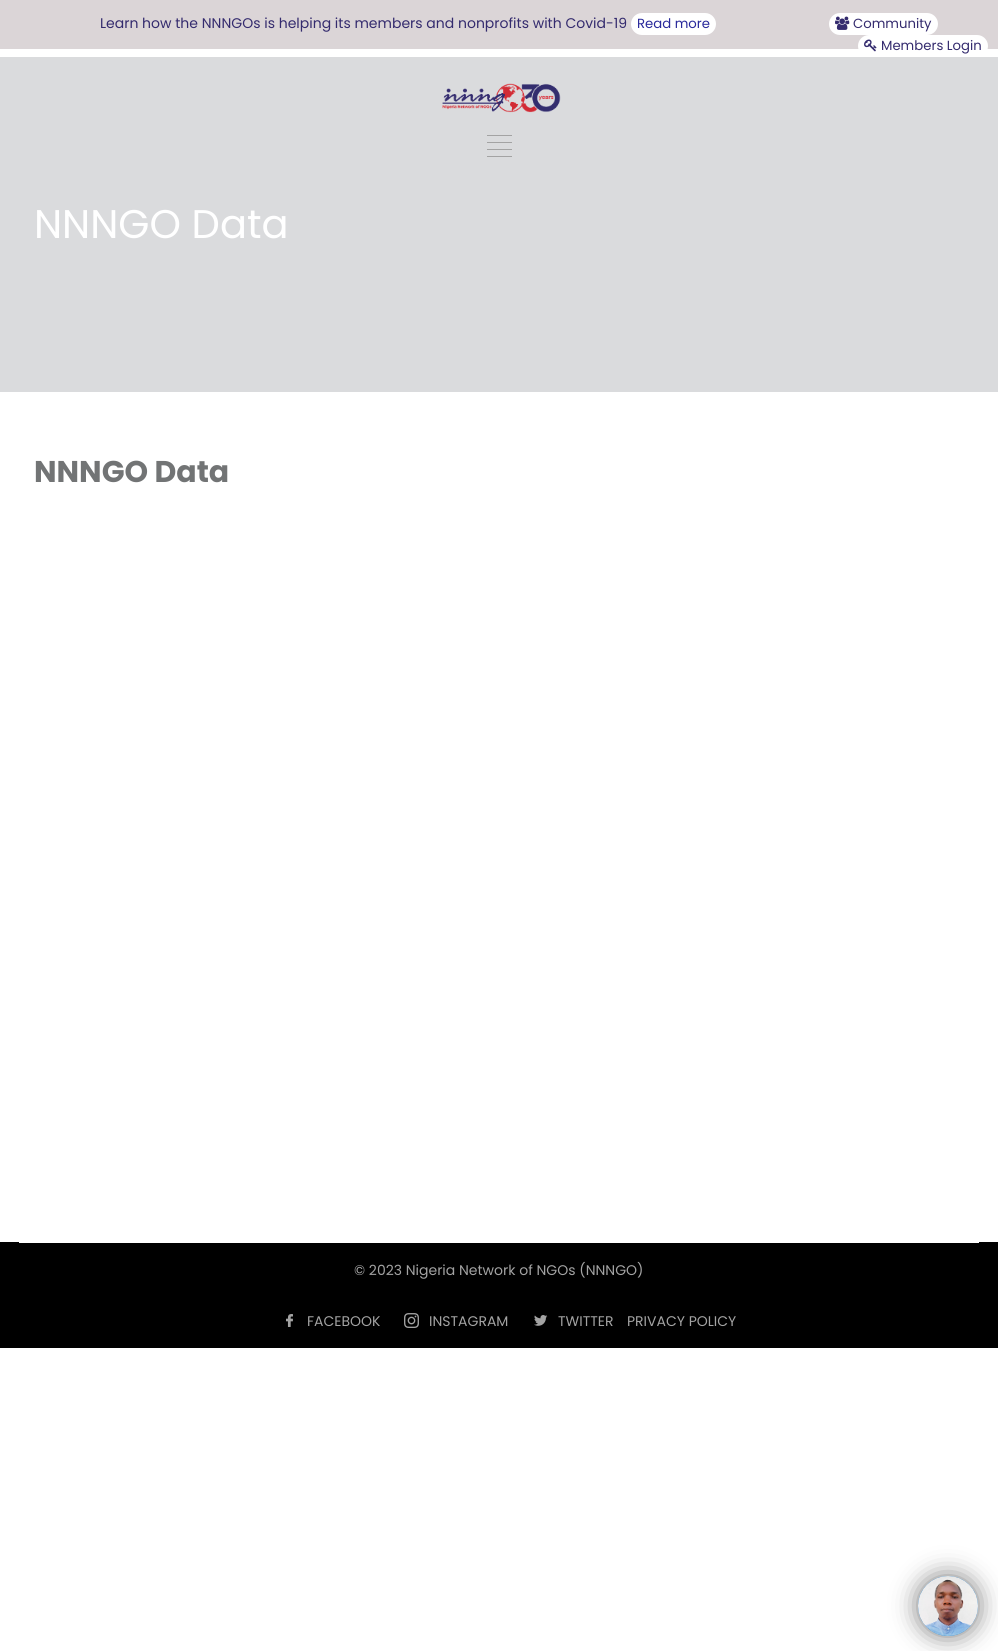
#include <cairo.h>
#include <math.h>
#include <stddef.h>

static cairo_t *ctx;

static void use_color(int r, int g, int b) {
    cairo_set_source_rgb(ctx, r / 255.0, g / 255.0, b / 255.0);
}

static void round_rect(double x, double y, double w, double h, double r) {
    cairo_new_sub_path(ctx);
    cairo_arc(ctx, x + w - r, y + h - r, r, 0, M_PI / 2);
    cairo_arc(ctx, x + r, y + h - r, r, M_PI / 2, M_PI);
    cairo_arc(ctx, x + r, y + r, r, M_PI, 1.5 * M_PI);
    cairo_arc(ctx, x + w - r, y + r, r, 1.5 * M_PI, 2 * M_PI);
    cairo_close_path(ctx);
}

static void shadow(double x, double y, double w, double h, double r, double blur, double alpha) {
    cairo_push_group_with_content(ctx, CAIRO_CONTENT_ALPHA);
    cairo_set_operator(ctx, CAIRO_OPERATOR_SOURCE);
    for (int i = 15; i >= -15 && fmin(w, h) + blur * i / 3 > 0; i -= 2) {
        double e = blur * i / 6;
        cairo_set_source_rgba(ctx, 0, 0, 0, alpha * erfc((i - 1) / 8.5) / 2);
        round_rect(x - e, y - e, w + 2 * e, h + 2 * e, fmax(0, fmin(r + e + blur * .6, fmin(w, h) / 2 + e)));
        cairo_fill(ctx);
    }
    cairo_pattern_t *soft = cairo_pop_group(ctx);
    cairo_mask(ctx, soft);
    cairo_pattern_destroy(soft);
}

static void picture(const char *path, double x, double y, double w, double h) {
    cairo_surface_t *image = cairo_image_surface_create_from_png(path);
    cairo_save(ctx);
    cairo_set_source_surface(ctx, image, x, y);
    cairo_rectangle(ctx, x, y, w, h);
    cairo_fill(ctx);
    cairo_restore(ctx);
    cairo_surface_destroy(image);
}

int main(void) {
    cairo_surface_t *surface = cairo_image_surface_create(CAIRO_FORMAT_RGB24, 998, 1651);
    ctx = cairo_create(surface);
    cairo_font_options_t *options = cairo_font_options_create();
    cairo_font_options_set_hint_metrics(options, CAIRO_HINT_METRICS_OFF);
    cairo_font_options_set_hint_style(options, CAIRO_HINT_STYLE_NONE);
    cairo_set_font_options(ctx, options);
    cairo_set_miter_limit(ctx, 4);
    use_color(255, 255, 255);
    cairo_paint(ctx);
    use_color(219, 213, 215);
    cairo_rectangle(ctx, 0, 0, 998, 49);
    cairo_fill(ctx);
    cairo_select_font_face(ctx, "Poppins", CAIRO_FONT_SLANT_NORMAL, CAIRO_FONT_WEIGHT_NORMAL);
    cairo_set_font_size(ctx, 14);
    use_color(52, 43, 110);
    cairo_move_to(ctx, 100, 28);
    cairo_show_text(ctx, "Learn how the NNNGOs is helping its members and nonprofits with Covid-19");
    use_color(255, 255, 255);
    round_rect(631, 13, 85, 22, 11);
    cairo_fill(ctx);
    cairo_set_font_size(ctx, 13.25);
    use_color(41, 41, 155);
    cairo_move_to(ctx, 637, 28);
    cairo_show_text(ctx, "Read more");
    use_color(255, 255, 255);
    round_rect(829, 13, 109, 22, 11);
    cairo_fill(ctx);
    picture("img1.png", 835, 16, 15, 14);
    use_color(52, 43, 110);
    cairo_move_to(ctx, 853, 28);
    cairo_show_text(ctx, "Community");
    use_color(255, 255, 255);
    round_rect(858, 35, 130, 22, 11);
    cairo_fill(ctx);
    picture("img2.png", 864, 39, 13, 13);
    use_color(52, 43, 110);
    cairo_move_to(ctx, 881, 50);
    cairo_show_text(ctx, "Members Login");
    use_color(218, 219, 221);
    cairo_rectangle(ctx, 0, 57, 998, 335);
    cairo_fill(ctx);
    picture("img3.png", 442, 83, 119, 30);
    use_color(163, 163, 163);
    cairo_rectangle(ctx, 487, 135, 25, 1);
    cairo_fill(ctx);
    cairo_rectangle(ctx, 487, 142, 25, 1);
    cairo_fill(ctx);
    cairo_rectangle(ctx, 487, 149, 25, 1);
    cairo_fill(ctx);
    cairo_rectangle(ctx, 487, 156, 25, 1);
    cairo_fill(ctx);
    cairo_set_font_size(ctx, 40);
    use_color(255, 255, 255);
    cairo_move_to(ctx, 34, 238);
    cairo_show_text(ctx, "NNNGO Data");
    cairo_select_font_face(ctx, "Poppins", CAIRO_FONT_SLANT_NORMAL, CAIRO_FONT_WEIGHT_BOLD);
    cairo_set_font_size(ctx, 30);
    use_color(114, 116, 117);
    cairo_move_to(ctx, 34, 482);
    cairo_show_text(ctx, "NNNGO Data");
    use_color(0, 0, 0);
    cairo_rectangle(ctx, 0, 1242, 998, 106);
    cairo_fill(ctx);
    use_color(255, 255, 255);
    cairo_rectangle(ctx, 19, 1242, 960, 1);
    cairo_fill(ctx);
    cairo_select_font_face(ctx, "Poppins", CAIRO_FONT_SLANT_NORMAL, CAIRO_FONT_WEIGHT_NORMAL);
    cairo_set_font_size(ctx, 14);
    use_color(163, 163, 163);
    cairo_move_to(ctx, 354, 1275);
    cairo_show_text(ctx, "© 2023 Nigeria Network of NGOs (NNNGO)");
    picture("img4.png", 286, 1314, 7, 13);
    cairo_move_to(ctx, 307, 1326);
    cairo_show_text(ctx, "FACEBOOK");
    picture("img5.png", 404, 1313, 15, 15);
    cairo_move_to(ctx, 429, 1326);
    cairo_show_text(ctx, "INSTAGRAM");
    picture("img6.png", 534, 1315, 14, 11);
    cairo_move_to(ctx, 558, 1326);
    cairo_show_text(ctx, "TWITTER");
    cairo_move_to(ctx, 627, 1326);
    cairo_show_text(ctx, "PRIVACY POLICY");
    use_color(122, 122, 122);
    shadow(918, 1576, 60, 60, 30, 12.5, 1);
    use_color(60, 138, 201);
    cairo_arc(ctx, 948, 1606, 30, 0, 2 * M_PI);
    cairo_fill(ctx);
    picture("img7.png", 918, 1576, 60, 60);
    cairo_surface_write_to_png(surface, "result.png");
    cairo_font_options_destroy(options);
    cairo_destroy(ctx);
    cairo_surface_destroy(surface);
    return 0;
}
